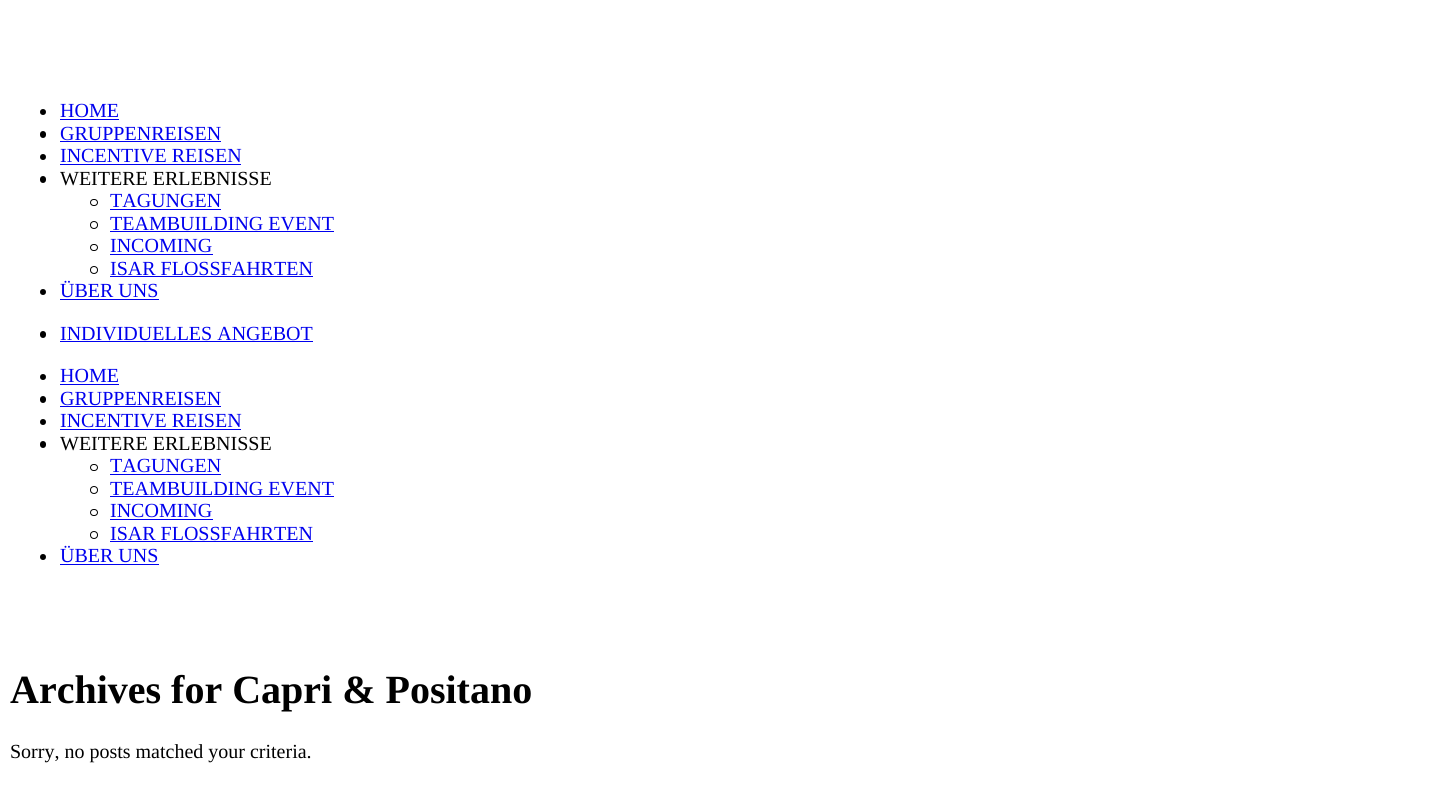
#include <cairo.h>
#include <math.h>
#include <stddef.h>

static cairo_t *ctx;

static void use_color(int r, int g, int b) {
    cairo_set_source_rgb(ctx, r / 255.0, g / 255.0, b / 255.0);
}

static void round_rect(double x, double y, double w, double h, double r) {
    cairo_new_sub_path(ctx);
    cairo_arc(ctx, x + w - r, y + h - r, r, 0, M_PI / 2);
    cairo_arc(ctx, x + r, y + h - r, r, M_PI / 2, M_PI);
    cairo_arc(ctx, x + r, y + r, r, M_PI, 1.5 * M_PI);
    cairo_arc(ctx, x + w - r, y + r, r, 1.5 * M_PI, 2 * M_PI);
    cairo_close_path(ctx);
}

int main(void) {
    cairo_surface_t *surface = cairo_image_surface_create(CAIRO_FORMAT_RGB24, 1443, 802);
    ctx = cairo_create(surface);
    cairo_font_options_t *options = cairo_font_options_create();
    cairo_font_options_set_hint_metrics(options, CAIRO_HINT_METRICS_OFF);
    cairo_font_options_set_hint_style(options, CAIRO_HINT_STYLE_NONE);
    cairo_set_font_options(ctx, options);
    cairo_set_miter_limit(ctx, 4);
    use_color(255, 255, 255);
    cairo_paint(ctx);
    use_color(0, 0, 0);
    cairo_arc(ctx, 43, 112, 3, 0, 2 * M_PI);
    cairo_fill(ctx);
    cairo_select_font_face(ctx, "Liberation Serif", CAIRO_FONT_SLANT_NORMAL, CAIRO_FONT_WEIGHT_NORMAL);
    cairo_set_font_size(ctx, 20);
    use_color(0, 0, 238);
    cairo_move_to(ctx, 60, 117);
    cairo_show_text(ctx, "HOME");
    cairo_rectangle(ctx, 60, 119, 59, 1);
    cairo_fill(ctx);
    use_color(0, 0, 0);
    round_rect(40, 131, 6, 7, 3);
    cairo_fill(ctx);
    use_color(0, 0, 238);
    cairo_move_to(ctx, 60, 140);
    cairo_show_text(ctx, "GRUPPENREISEN");
    cairo_rectangle(ctx, 60, 141, 161, 1);
    cairo_fill(ctx);
    use_color(0, 0, 0);
    cairo_arc(ctx, 43, 157, 3, 0, 2 * M_PI);
    cairo_fill(ctx);
    use_color(0, 0, 238);
    cairo_move_to(ctx, 60, 162);
    cairo_show_text(ctx, "INCENTIVE REISEN");
    cairo_rectangle(ctx, 60, 164, 181, 1);
    cairo_fill(ctx);
    use_color(0, 0, 0);
    round_rect(40, 176, 6, 7, 3);
    cairo_fill(ctx);
    cairo_move_to(ctx, 60, 185);
    cairo_show_text(ctx, "WEITERE ERLEBNISSE");
    round_rect(90.5, 199.5, 7, 6, 3);
    cairo_set_line_width(ctx, 1);
    cairo_stroke(ctx);
    use_color(0, 0, 238);
    cairo_move_to(ctx, 110, 207);
    cairo_show_text(ctx, "TAGUNGEN");
    cairo_rectangle(ctx, 110, 209, 111, 1);
    cairo_fill(ctx);
    cairo_arc(ctx, 94, 225, 3.5, 0, 2 * M_PI);
    use_color(0, 0, 0);
    cairo_stroke(ctx);
    use_color(0, 0, 238);
    cairo_move_to(ctx, 110, 230);
    cairo_show_text(ctx, "TEAMBUILDING EVENT");
    cairo_rectangle(ctx, 110, 231, 224, 1);
    cairo_fill(ctx);
    round_rect(90.5, 244.5, 7, 6, 3);
    use_color(0, 0, 0);
    cairo_stroke(ctx);
    use_color(0, 0, 238);
    cairo_move_to(ctx, 110, 252);
    cairo_show_text(ctx, "INCOMING");
    cairo_rectangle(ctx, 110, 254, 103, 1);
    cairo_fill(ctx);
    cairo_arc(ctx, 94, 270, 3.5, 0, 2 * M_PI);
    use_color(0, 0, 0);
    cairo_stroke(ctx);
    use_color(0, 0, 238);
    cairo_move_to(ctx, 110, 275);
    cairo_show_text(ctx, "ISAR FLOSSFAHRTEN");
    cairo_rectangle(ctx, 110, 276, 203, 1);
    cairo_fill(ctx);
    use_color(0, 0, 0);
    cairo_arc(ctx, 43, 292, 3, 0, 2 * M_PI);
    cairo_fill(ctx);
    use_color(0, 0, 238);
    cairo_move_to(ctx, 60, 297);
    cairo_show_text(ctx, "ÜBER UNS");
    cairo_rectangle(ctx, 60, 299, 99, 1);
    cairo_fill(ctx);
    use_color(0, 0, 0);
    round_rect(40, 331, 6, 7, 3);
    cairo_fill(ctx);
    use_color(0, 0, 238);
    cairo_move_to(ctx, 60, 340);
    cairo_show_text(ctx, "INDIVIDUELLES ANGEBOT");
    cairo_rectangle(ctx, 60, 341, 253, 1);
    cairo_fill(ctx);
    use_color(0, 0, 0);
    cairo_arc(ctx, 43, 377, 3, 0, 2 * M_PI);
    cairo_fill(ctx);
    use_color(0, 0, 238);
    cairo_move_to(ctx, 60, 382);
    cairo_show_text(ctx, "HOME");
    cairo_rectangle(ctx, 60, 384, 59, 1);
    cairo_fill(ctx);
    use_color(0, 0, 0);
    round_rect(40, 396, 6, 7, 3);
    cairo_fill(ctx);
    use_color(0, 0, 238);
    cairo_move_to(ctx, 60, 405);
    cairo_show_text(ctx, "GRUPPENREISEN");
    cairo_rectangle(ctx, 60, 406, 161, 1);
    cairo_fill(ctx);
    use_color(0, 0, 0);
    cairo_arc(ctx, 43, 422, 3, 0, 2 * M_PI);
    cairo_fill(ctx);
    use_color(0, 0, 238);
    cairo_move_to(ctx, 60, 427);
    cairo_show_text(ctx, "INCENTIVE REISEN");
    cairo_rectangle(ctx, 60, 429, 181, 1);
    cairo_fill(ctx);
    use_color(0, 0, 0);
    round_rect(40, 441, 6, 7, 3);
    cairo_fill(ctx);
    cairo_move_to(ctx, 60, 450);
    cairo_show_text(ctx, "WEITERE ERLEBNISSE");
    round_rect(90.5, 464.5, 7, 6, 3);
    cairo_stroke(ctx);
    use_color(0, 0, 238);
    cairo_move_to(ctx, 110, 472);
    cairo_show_text(ctx, "TAGUNGEN");
    cairo_rectangle(ctx, 110, 474, 111, 1);
    cairo_fill(ctx);
    cairo_arc(ctx, 94, 490, 3.5, 0, 2 * M_PI);
    use_color(0, 0, 0);
    cairo_stroke(ctx);
    use_color(0, 0, 238);
    cairo_move_to(ctx, 110, 495);
    cairo_show_text(ctx, "TEAMBUILDING EVENT");
    cairo_rectangle(ctx, 110, 496, 224, 1);
    cairo_fill(ctx);
    round_rect(90.5, 509.5, 7, 6, 3);
    use_color(0, 0, 0);
    cairo_stroke(ctx);
    use_color(0, 0, 238);
    cairo_move_to(ctx, 110, 517);
    cairo_show_text(ctx, "INCOMING");
    cairo_rectangle(ctx, 110, 519, 103, 1);
    cairo_fill(ctx);
    cairo_arc(ctx, 94, 535, 3.5, 0, 2 * M_PI);
    use_color(0, 0, 0);
    cairo_stroke(ctx);
    use_color(0, 0, 238);
    cairo_move_to(ctx, 110, 540);
    cairo_show_text(ctx, "ISAR FLOSSFAHRTEN");
    cairo_rectangle(ctx, 110, 541, 203, 1);
    cairo_fill(ctx);
    use_color(0, 0, 0);
    cairo_arc(ctx, 43, 557, 3, 0, 2 * M_PI);
    cairo_fill(ctx);
    use_color(0, 0, 238);
    cairo_move_to(ctx, 60, 562);
    cairo_show_text(ctx, "ÜBER UNS");
    cairo_rectangle(ctx, 60, 564, 99, 1);
    cairo_fill(ctx);
    cairo_select_font_face(ctx, "Liberation Serif", CAIRO_FONT_SLANT_NORMAL, CAIRO_FONT_WEIGHT_BOLD);
    cairo_set_font_size(ctx, 40);
    use_color(0, 0, 0);
    cairo_move_to(ctx, 10, 703);
    cairo_show_text(ctx, "Archives for Capri & Positano");
    cairo_select_font_face(ctx, "Liberation Serif", CAIRO_FONT_SLANT_NORMAL, CAIRO_FONT_WEIGHT_NORMAL);
    cairo_set_font_size(ctx, 20);
    cairo_move_to(ctx, 10, 758);
    cairo_show_text(ctx, "Sorry, no posts matched your criteria.");
    cairo_surface_write_to_png(surface, "result.png");
    cairo_font_options_destroy(options);
    cairo_destroy(ctx);
    cairo_surface_destroy(surface);
    return 0;
}
